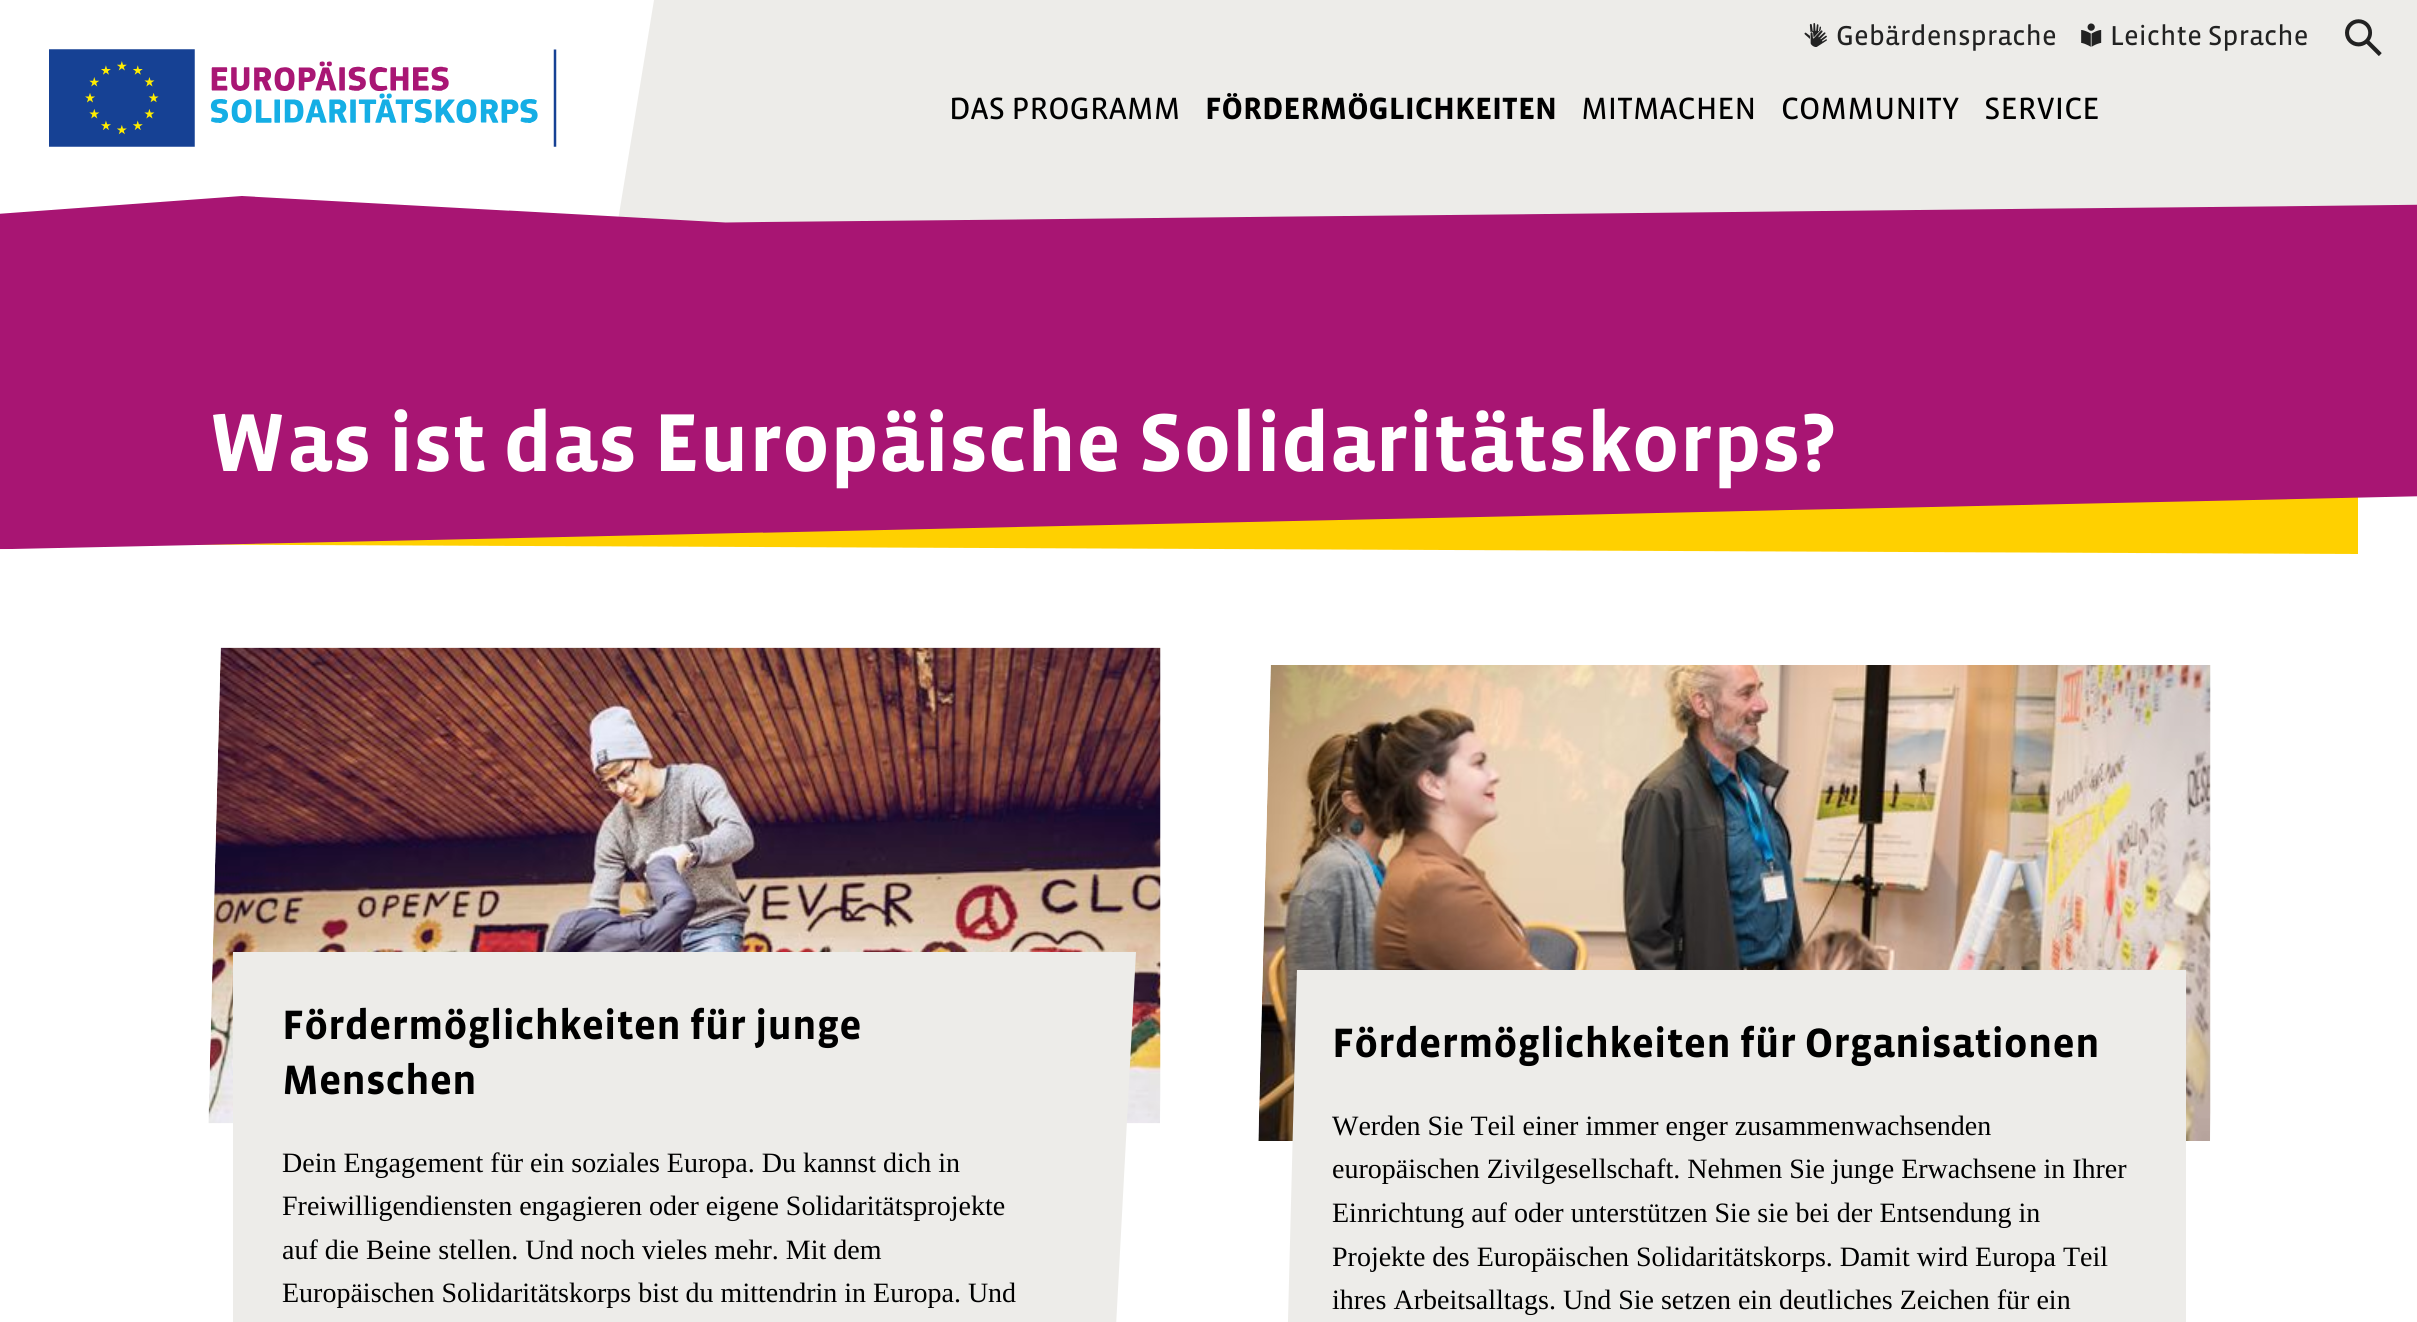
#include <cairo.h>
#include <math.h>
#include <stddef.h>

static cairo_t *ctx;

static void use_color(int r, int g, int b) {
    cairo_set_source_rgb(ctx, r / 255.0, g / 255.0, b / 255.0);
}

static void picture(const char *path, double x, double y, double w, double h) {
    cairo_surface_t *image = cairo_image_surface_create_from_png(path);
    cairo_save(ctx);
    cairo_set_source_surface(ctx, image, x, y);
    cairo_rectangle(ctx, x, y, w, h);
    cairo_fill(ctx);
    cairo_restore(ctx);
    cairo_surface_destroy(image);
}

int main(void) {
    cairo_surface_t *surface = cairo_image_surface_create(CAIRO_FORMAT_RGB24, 2417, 1322);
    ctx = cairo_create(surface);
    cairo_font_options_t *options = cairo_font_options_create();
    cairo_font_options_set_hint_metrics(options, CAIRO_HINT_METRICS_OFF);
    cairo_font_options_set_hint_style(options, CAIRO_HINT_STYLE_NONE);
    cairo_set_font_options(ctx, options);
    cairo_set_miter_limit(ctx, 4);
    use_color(255, 255, 255);
    cairo_paint(ctx);
    use_color(237, 236, 233);
    cairo_rectangle(ctx, 618, 0, 1799, 223);
    cairo_fill(ctx);
    picture("img1.png", 49, 49, 508, 98);
    use_color(255, 255, 255);
    cairo_new_path(ctx);
    cairo_move_to(ctx, 606, 0);
    cairo_line_to(ctx, 654, 0);
    cairo_line_to(ctx, 606, 294);
    cairo_close_path(ctx);
    cairo_fill(ctx);
    picture("img2.png", 1804, 23, 23, 24);
    cairo_select_font_face(ctx, "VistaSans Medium", CAIRO_FONT_SLANT_NORMAL, CAIRO_FONT_WEIGHT_NORMAL);
    cairo_set_font_size(ctx, 28);
    use_color(34, 34, 34);
    cairo_move_to(ctx, 1836, 45);
    cairo_show_text(ctx, "Gebärdensprache");
    picture("img3.png", 2081, 23, 21, 24);
    cairo_move_to(ctx, 2110, 45);
    cairo_show_text(ctx, "Leichte Sprache");
    picture("img4.png", 2345, 19, 37, 37);
    cairo_set_font_size(ctx, 31.5);
    use_color(0, 0, 0);
    cairo_move_to(ctx, 949, 119);
    cairo_show_text(ctx, "DAS PROGRAMM");
    cairo_select_font_face(ctx, "VistaSans", CAIRO_FONT_SLANT_NORMAL, CAIRO_FONT_WEIGHT_BOLD);
    cairo_move_to(ctx, 1205, 119);
    cairo_show_text(ctx, "FÖRDERMÖGLICHKEITEN");
    cairo_select_font_face(ctx, "VistaSans Medium", CAIRO_FONT_SLANT_NORMAL, CAIRO_FONT_WEIGHT_NORMAL);
    cairo_move_to(ctx, 1581, 119);
    cairo_show_text(ctx, "MITMACHEN");
    cairo_move_to(ctx, 1781, 119);
    cairo_show_text(ctx, "COMMUNITY");
    cairo_move_to(ctx, 1984, 119);
    cairo_show_text(ctx, "SERVICE");
    use_color(255, 208, 0);
    cairo_new_path(ctx);
    cairo_move_to(ctx, 61, 368);
    cairo_line_to(ctx, 2358, 378);
    cairo_line_to(ctx, 2358, 554);
    cairo_line_to(ctx, 60, 544);
    cairo_close_path(ctx);
    cairo_fill(ctx);
    picture("img5.png", 0, 196, 2417, 354);
    cairo_select_font_face(ctx, "VistaSans", CAIRO_FONT_SLANT_NORMAL, CAIRO_FONT_WEIGHT_BOLD);
    cairo_set_font_size(ctx, 84);
    use_color(255, 255, 255);
    cairo_move_to(ctx, 208, 471);
    cairo_show_text(ctx, "Was ist das Europäische Solidaritätskorps?");
    picture("img6.png", 208, 647, 953, 477);
    cairo_save(ctx);
    cairo_rectangle(ctx, 233, 952, 903, 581);
    cairo_clip(ctx);
    use_color(237, 236, 233);
    cairo_new_path(ctx);
    cairo_move_to(ctx, 234, 928);
    cairo_line_to(ctx, 1136, 952);
    cairo_line_to(ctx, 1105, 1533);
    cairo_line_to(ctx, 203, 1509);
    cairo_close_path(ctx);
    cairo_fill(ctx);
    cairo_restore(ctx);
    cairo_set_font_size(ctx, 42);
    use_color(0, 0, 0);
    cairo_move_to(ctx, 282, 1039);
    cairo_show_text(ctx, "Fördermöglichkeiten für junge");
    cairo_move_to(ctx, 282, 1094);
    cairo_show_text(ctx, "Menschen");
    cairo_select_font_face(ctx, "Liberation Serif", CAIRO_FONT_SLANT_NORMAL, CAIRO_FONT_WEIGHT_NORMAL);
    cairo_set_font_size(ctx, 28);
    cairo_move_to(ctx, 282, 1172);
    cairo_show_text(ctx, "Dein Engagement für ein soziales Europa. Du kannst dich in");
    cairo_move_to(ctx, 282, 1215);
    cairo_show_text(ctx, "Freiwilligendiensten engagieren oder eigene Solidaritätsprojekte");
    cairo_move_to(ctx, 282, 1259);
    cairo_show_text(ctx, "auf die Beine stellen. Und noch vieles mehr. Mit dem");
    cairo_move_to(ctx, 282, 1302);
    cairo_show_text(ctx, "Europäischen Solidaritätskorps bist du mittendrin in Europa. Und");
    picture("img7.png", 1258, 665, 953, 476);
    cairo_save(ctx);
    cairo_rectangle(ctx, 1283, 970, 903, 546);
    cairo_clip(ctx);
    use_color(237, 236, 233);
    cairo_new_path(ctx);
    cairo_move_to(ctx, 1297, 969);
    cairo_line_to(ctx, 2200, 969);
    cairo_line_to(ctx, 2186, 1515);
    cairo_line_to(ctx, 1283, 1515);
    cairo_close_path(ctx);
    cairo_fill(ctx);
    cairo_restore(ctx);
    cairo_select_font_face(ctx, "VistaSans", CAIRO_FONT_SLANT_NORMAL, CAIRO_FONT_WEIGHT_BOLD);
    cairo_set_font_size(ctx, 42);
    cairo_move_to(ctx, 1332, 1057);
    cairo_show_text(ctx, "Fördermöglichkeiten für Organisationen");
    cairo_select_font_face(ctx, "Liberation Serif", CAIRO_FONT_SLANT_NORMAL, CAIRO_FONT_WEIGHT_NORMAL);
    cairo_set_font_size(ctx, 28);
    cairo_move_to(ctx, 1332, 1135);
    cairo_show_text(ctx, "Werden Sie Teil einer immer enger zusammenwachsenden");
    cairo_move_to(ctx, 1332, 1178);
    cairo_show_text(ctx, "europäischen Zivilgesellschaft. Nehmen Sie junge Erwachsene in Ihrer");
    cairo_move_to(ctx, 1332, 1222);
    cairo_show_text(ctx, "Einrichtung auf oder unterstützen Sie sie bei der Entsendung in");
    cairo_move_to(ctx, 1332, 1266);
    cairo_show_text(ctx, "Projekte des Europäischen Solidaritätskorps. Damit wird Europa Teil");
    cairo_move_to(ctx, 1332, 1309);
    cairo_show_text(ctx, "ihres Arbeitsalltags. Und Sie setzen ein deutliches Zeichen für ein");
    cairo_surface_write_to_png(surface, "result.png");
    cairo_font_options_destroy(options);
    cairo_destroy(ctx);
    cairo_surface_destroy(surface);
    return 0;
}
